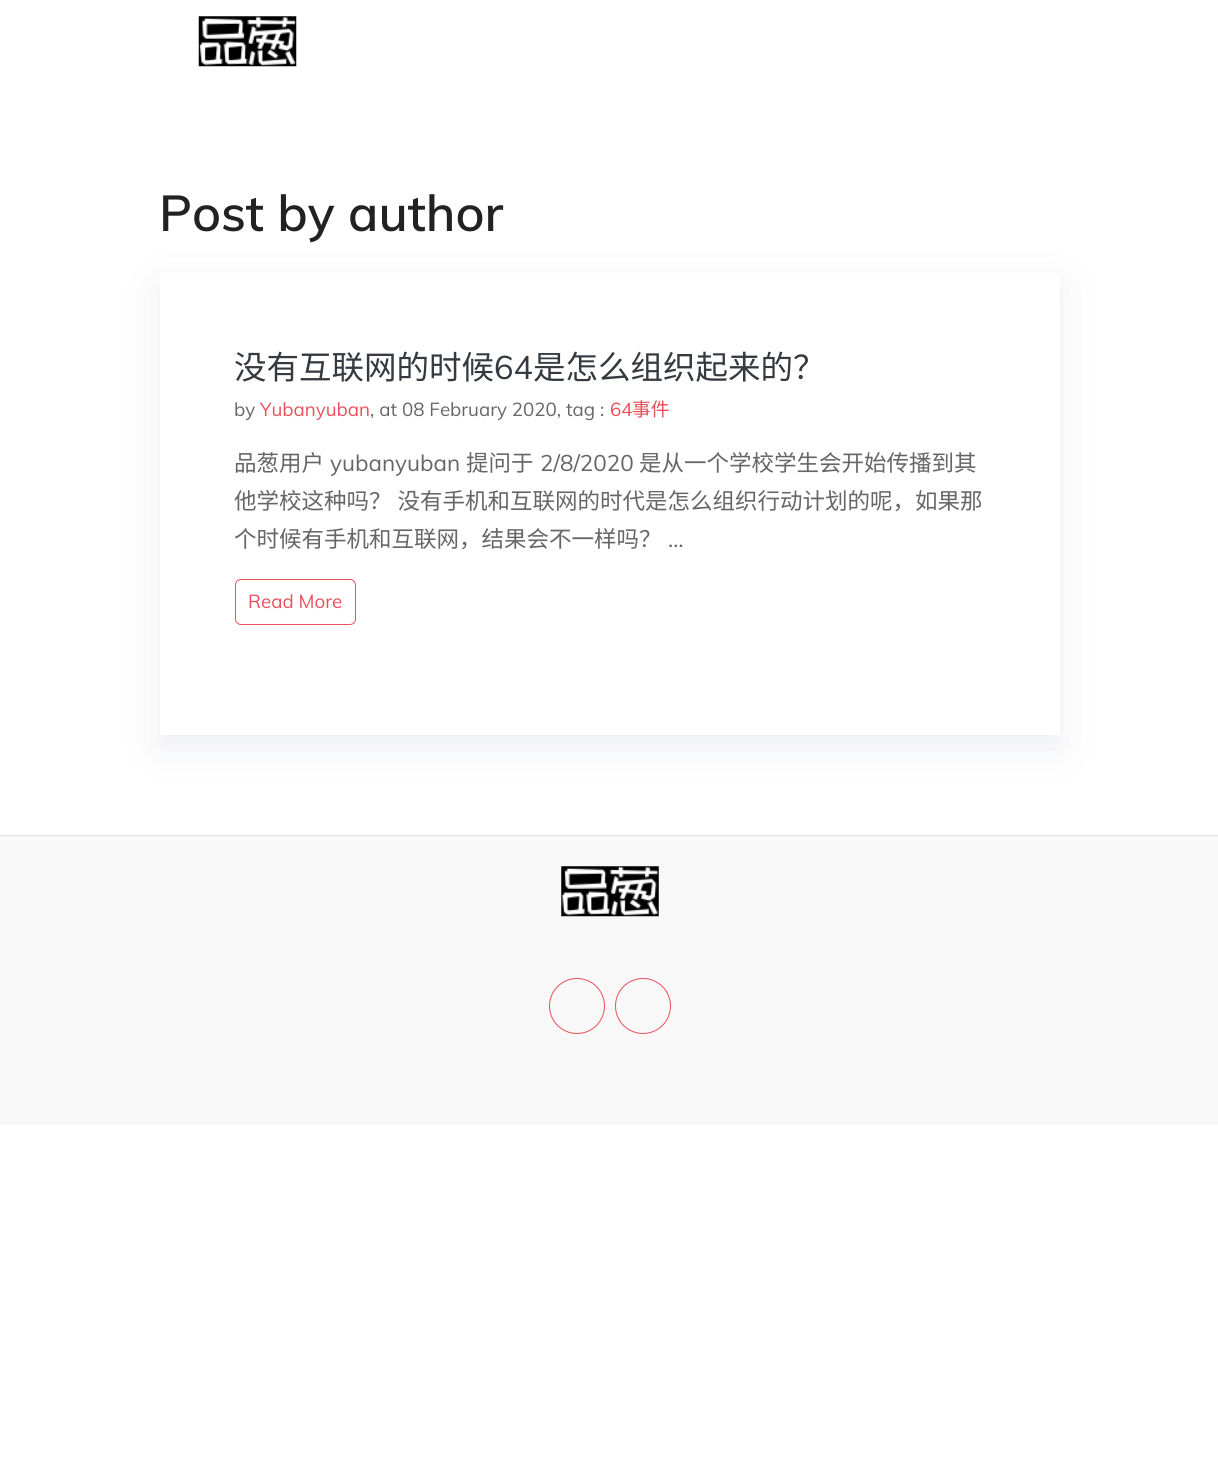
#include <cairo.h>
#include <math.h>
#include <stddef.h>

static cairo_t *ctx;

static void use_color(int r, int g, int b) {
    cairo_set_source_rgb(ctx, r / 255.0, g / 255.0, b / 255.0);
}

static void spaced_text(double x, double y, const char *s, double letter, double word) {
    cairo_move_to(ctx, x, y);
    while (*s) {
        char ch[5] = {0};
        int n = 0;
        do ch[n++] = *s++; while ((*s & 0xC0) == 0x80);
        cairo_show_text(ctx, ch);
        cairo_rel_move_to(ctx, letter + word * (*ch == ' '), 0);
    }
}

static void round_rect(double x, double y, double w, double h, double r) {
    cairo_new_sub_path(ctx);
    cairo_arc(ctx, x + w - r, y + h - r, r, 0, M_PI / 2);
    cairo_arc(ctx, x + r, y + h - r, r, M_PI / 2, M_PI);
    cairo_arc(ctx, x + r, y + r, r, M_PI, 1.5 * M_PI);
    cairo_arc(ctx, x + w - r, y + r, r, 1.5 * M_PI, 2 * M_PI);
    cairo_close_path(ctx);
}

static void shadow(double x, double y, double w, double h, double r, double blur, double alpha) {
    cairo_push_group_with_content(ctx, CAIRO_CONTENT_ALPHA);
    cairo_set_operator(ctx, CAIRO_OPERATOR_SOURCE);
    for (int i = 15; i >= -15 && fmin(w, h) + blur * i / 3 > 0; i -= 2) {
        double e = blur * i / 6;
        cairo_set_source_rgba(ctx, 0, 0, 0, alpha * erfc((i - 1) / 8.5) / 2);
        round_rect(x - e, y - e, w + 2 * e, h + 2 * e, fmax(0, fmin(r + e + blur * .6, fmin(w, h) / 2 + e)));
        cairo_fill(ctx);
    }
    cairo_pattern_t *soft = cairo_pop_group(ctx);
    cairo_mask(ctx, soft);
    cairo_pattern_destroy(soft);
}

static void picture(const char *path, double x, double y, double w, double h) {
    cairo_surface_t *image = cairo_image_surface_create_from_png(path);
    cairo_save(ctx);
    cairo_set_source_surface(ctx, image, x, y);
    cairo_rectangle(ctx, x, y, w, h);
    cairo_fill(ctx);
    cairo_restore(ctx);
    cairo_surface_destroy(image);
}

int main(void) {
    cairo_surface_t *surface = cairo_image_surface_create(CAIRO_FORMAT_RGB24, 1218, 1474);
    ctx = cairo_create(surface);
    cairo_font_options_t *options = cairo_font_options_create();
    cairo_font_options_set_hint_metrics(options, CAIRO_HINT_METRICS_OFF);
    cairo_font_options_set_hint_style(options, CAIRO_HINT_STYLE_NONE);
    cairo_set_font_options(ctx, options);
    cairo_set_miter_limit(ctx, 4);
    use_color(255, 255, 255);
    cairo_paint(ctx);
    picture("img1.png", 198, 16, 99, 51);
    cairo_save(ctx);
    cairo_set_fill_rule(ctx, CAIRO_FILL_RULE_EVEN_ODD);
    cairo_new_path(ctx);
    cairo_move_to(ctx, 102, 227);
    cairo_line_to(ctx, 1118, 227);
    cairo_line_to(ctx, 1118, 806);
    cairo_line_to(ctx, 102, 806);
    cairo_close_path(ctx);
    cairo_move_to(ctx, 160, 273);
    cairo_line_to(ctx, 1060, 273);
    cairo_line_to(ctx, 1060, 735);
    cairo_line_to(ctx, 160, 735);
    cairo_close_path(ctx);
    cairo_clip(ctx);
    use_color(68, 74, 102);
    shadow(160, 285, 900, 463, 0, 19, 0.1);
    cairo_restore(ctx);
    cairo_select_font_face(ctx, "Muli SemiBold", CAIRO_FONT_SLANT_NORMAL, CAIRO_FONT_WEIGHT_NORMAL);
    cairo_set_font_size(ctx, 50);
    use_color(34, 34, 34);
    cairo_move_to(ctx, 159, 231);
    cairo_show_text(ctx, "Post by author");
    cairo_select_font_face(ctx, "Noto Sans CJK SC", CAIRO_FONT_SLANT_NORMAL, CAIRO_FONT_WEIGHT_NORMAL);
    cairo_set_font_size(ctx, 32.5);
    use_color(52, 58, 64);
    cairo_move_to(ctx, 234, 379);
    cairo_show_text(ctx, "没有互联网的时候");
    cairo_select_font_face(ctx, "Muli", CAIRO_FONT_SLANT_NORMAL, CAIRO_FONT_WEIGHT_NORMAL);
    cairo_move_to(ctx, 494, 379);
    cairo_show_text(ctx, "64");
    cairo_select_font_face(ctx, "Noto Sans CJK SC", CAIRO_FONT_SLANT_NORMAL, CAIRO_FONT_WEIGHT_NORMAL);
    cairo_move_to(ctx, 533, 379);
    cairo_show_text(ctx, "是怎么组织起来的？");
    cairo_select_font_face(ctx, "Muli", CAIRO_FONT_SLANT_NORMAL, CAIRO_FONT_WEIGHT_NORMAL);
    cairo_set_font_size(ctx, 18.75);
    use_color(102, 102, 102);
    cairo_move_to(ctx, 234, 416);
    cairo_show_text(ctx, "by");
    use_color(232, 80, 91);
    cairo_move_to(ctx, 260, 416);
    cairo_show_text(ctx, "Yubanyuban");
    use_color(102, 102, 102);
    cairo_move_to(ctx, 370, 416);
    cairo_show_text(ctx, ", at 08 February 2020, tag :");
    use_color(232, 80, 91);
    cairo_move_to(ctx, 610, 416);
    cairo_show_text(ctx, "64");
    cairo_select_font_face(ctx, "Noto Sans CJK SC", CAIRO_FONT_SLANT_NORMAL, CAIRO_FONT_WEIGHT_NORMAL);
    cairo_move_to(ctx, 632, 416);
    cairo_show_text(ctx, "事件");
    cairo_set_font_size(ctx, 22.5);
    use_color(102, 102, 102);
    cairo_move_to(ctx, 234, 471);
    cairo_show_text(ctx, "品葱用户");
    cairo_select_font_face(ctx, "Muli", CAIRO_FONT_SLANT_NORMAL, CAIRO_FONT_WEIGHT_NORMAL);
    cairo_move_to(ctx, 330, 471);
    cairo_show_text(ctx, "yubanyuban");
    cairo_select_font_face(ctx, "Noto Sans CJK SC", CAIRO_FONT_SLANT_NORMAL, CAIRO_FONT_WEIGHT_NORMAL);
    cairo_move_to(ctx, 466, 471);
    cairo_show_text(ctx, "提问于");
    cairo_select_font_face(ctx, "Muli", CAIRO_FONT_SLANT_NORMAL, CAIRO_FONT_WEIGHT_NORMAL);
    cairo_move_to(ctx, 540, 471);
    cairo_show_text(ctx, "2/8/2020");
    cairo_select_font_face(ctx, "Noto Sans CJK SC", CAIRO_FONT_SLANT_NORMAL, CAIRO_FONT_WEIGHT_NORMAL);
    cairo_move_to(ctx, 639, 471);
    cairo_show_text(ctx, "是从一个学校学生会开始传播到其");
    spaced_text(234, 509, "他学校这种吗？ 没有手机和互联网的时代是怎么组织行动计划的呢，如果那", 0, 1);
    cairo_move_to(ctx, 234, 547);
    cairo_show_text(ctx, "个时候有手机和互联网，结果会不一样吗？");
    cairo_select_font_face(ctx, "Muli", CAIRO_FONT_SLANT_NORMAL, CAIRO_FONT_WEIGHT_NORMAL);
    cairo_move_to(ctx, 668, 547);
    cairo_show_text(ctx, "…");
    round_rect(235.5, 579.5, 120, 45, 5.5);
    use_color(232, 80, 91);
    cairo_set_line_width(ctx, 1);
    cairo_stroke(ctx);
    cairo_set_font_size(ctx, 18.75);
    cairo_move_to(ctx, 248, 608);
    cairo_show_text(ctx, "Read More");
    use_color(248, 248, 248);
    cairo_rectangle(ctx, 0, 836, 1218, 289);
    cairo_fill(ctx);
    use_color(222, 226, 230);
    cairo_rectangle(ctx, 0, 835, 1218, 1);
    cairo_fill(ctx);
    picture("img2.png", 561, 866, 98, 51);
    cairo_arc(ctx, 577, 1006, 27.5, 0, 2 * M_PI);
    use_color(232, 80, 91);
    cairo_stroke(ctx);
    cairo_arc(ctx, 643, 1006, 27.5, 0, 2 * M_PI);
    cairo_stroke(ctx);
    cairo_surface_write_to_png(surface, "result.png");
    cairo_font_options_destroy(options);
    cairo_destroy(ctx);
    cairo_surface_destroy(surface);
    return 0;
}
